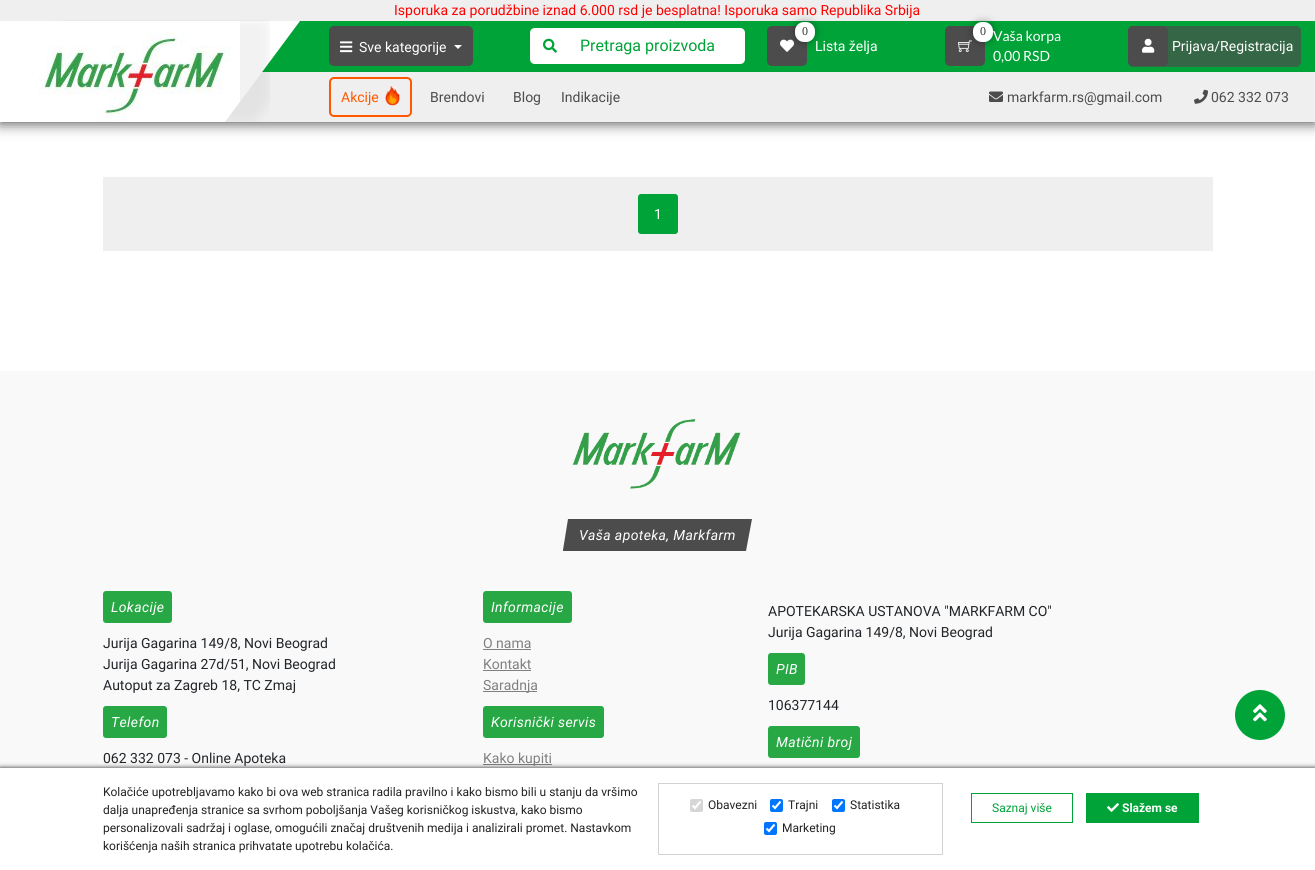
#include <cairo.h>
#include <math.h>
#include <stddef.h>

static cairo_t *ctx;

static void use_color(int r, int g, int b) {
    cairo_set_source_rgb(ctx, r / 255.0, g / 255.0, b / 255.0);
}

static void spaced_text(double x, double y, const char *s, double letter, double word) {
    cairo_move_to(ctx, x, y);
    while (*s) {
        char ch[5] = {0};
        int n = 0;
        do ch[n++] = *s++; while ((*s & 0xC0) == 0x80);
        cairo_show_text(ctx, ch);
        cairo_rel_move_to(ctx, letter + word * (*ch == ' '), 0);
    }
}

static void round_rect(double x, double y, double w, double h, double r) {
    cairo_new_sub_path(ctx);
    cairo_arc(ctx, x + w - r, y + h - r, r, 0, M_PI / 2);
    cairo_arc(ctx, x + r, y + h - r, r, M_PI / 2, M_PI);
    cairo_arc(ctx, x + r, y + r, r, M_PI, 1.5 * M_PI);
    cairo_arc(ctx, x + w - r, y + r, r, 1.5 * M_PI, 2 * M_PI);
    cairo_close_path(ctx);
}

static void shadow(double x, double y, double w, double h, double r, double blur, double alpha) {
    cairo_push_group_with_content(ctx, CAIRO_CONTENT_ALPHA);
    cairo_set_operator(ctx, CAIRO_OPERATOR_SOURCE);
    for (int i = 15; i >= -15 && fmin(w, h) + blur * i / 3 > 0; i -= 2) {
        double e = blur * i / 6;
        cairo_set_source_rgba(ctx, 0, 0, 0, alpha * erfc((i - 1) / 8.5) / 2);
        round_rect(x - e, y - e, w + 2 * e, h + 2 * e, fmax(0, fmin(r + e + blur * .6, fmin(w, h) / 2 + e)));
        cairo_fill(ctx);
    }
    cairo_pattern_t *soft = cairo_pop_group(ctx);
    cairo_mask(ctx, soft);
    cairo_pattern_destroy(soft);
}

static void picture(const char *path, double x, double y, double w, double h) {
    cairo_surface_t *image = cairo_image_surface_create_from_png(path);
    cairo_save(ctx);
    cairo_set_source_surface(ctx, image, x, y);
    cairo_rectangle(ctx, x, y, w, h);
    cairo_fill(ctx);
    cairo_restore(ctx);
    cairo_surface_destroy(image);
}

int main(void) {
    cairo_surface_t *surface = cairo_image_surface_create(CAIRO_FORMAT_RGB24, 1315, 870);
    ctx = cairo_create(surface);
    cairo_font_options_t *options = cairo_font_options_create();
    cairo_font_options_set_hint_metrics(options, CAIRO_HINT_METRICS_OFF);
    cairo_font_options_set_hint_style(options, CAIRO_HINT_STYLE_NONE);
    cairo_set_font_options(ctx, options);
    cairo_set_miter_limit(ctx, 4);
    use_color(255, 255, 255);
    cairo_paint(ctx);
    use_color(0, 0, 0);
    shadow(0, 0, 1315, 122, 0, 7.5, 0.82);
    use_color(239, 239, 239);
    cairo_rectangle(ctx, 0, 0, 1315, 122);
    cairo_fill(ctx);
    use_color(0, 163, 55);
    cairo_rectangle(ctx, 262, 21, 1053, 51);
    cairo_fill(ctx);
    use_color(76, 76, 76);
    round_rect(767, 26, 40, 40, 5);
    cairo_fill(ctx);
    picture("img4.png", 780, 39, 14, 13);
    use_color(0, 0, 0);
    shadow(795, 22, 20, 20, 9, 4, 0.4);
    cairo_select_font_face(ctx, "Roboto", CAIRO_FONT_SLANT_NORMAL, CAIRO_FONT_WEIGHT_NORMAL);
    cairo_set_font_size(ctx, 14);
    use_color(255, 0, 0);
    cairo_move_to(ctx, 394, 15);
    cairo_show_text(ctx, "Isporuka za porudžbine iznad 6.000 rsd je besplatna! Isporuka samo Republika Srbija");
    use_color(255, 255, 255);
    cairo_new_path(ctx);
    cairo_move_to(ctx, 0, 21);
    cairo_line_to(ctx, 0, 122);
    cairo_line_to(ctx, 225, 122);
    cairo_line_to(ctx, 300, 21);
    cairo_close_path(ctx);
    cairo_fill(ctx);
    picture("img1.png", 39, 20, 231, 102);
    use_color(76, 76, 76);
    round_rect(329, 26, 144, 40, 5);
    cairo_fill(ctx);
    picture("img2.png", 340, 41, 13, 12);
    use_color(255, 255, 255);
    cairo_move_to(ctx, 359, 52);
    cairo_show_text(ctx, "Sve kategorije");
    cairo_new_path(ctx);
    cairo_move_to(ctx, 454, 45);
    cairo_line_to(ctx, 462, 45);
    cairo_line_to(ctx, 458, 49);
    cairo_close_path(ctx);
    cairo_fill(ctx);
    cairo_new_path(ctx);
    cairo_move_to(ctx, 535, 28);
    cairo_line_to(ctx, 575, 28);
    cairo_line_to(ctx, 575, 64);
    cairo_line_to(ctx, 535, 64);
    cairo_curve_to(ctx, 532, 64, 530, 62, 530, 59);
    cairo_line_to(ctx, 530, 33);
    cairo_curve_to(ctx, 530, 30, 532, 28, 535, 28);
    cairo_close_path(ctx);
    cairo_fill(ctx);
    picture("img3.png", 543, 38, 14, 15);
    cairo_new_path(ctx);
    cairo_move_to(ctx, 575, 28);
    cairo_line_to(ctx, 740, 28);
    cairo_curve_to(ctx, 743, 28, 745, 30, 745, 33);
    cairo_line_to(ctx, 745, 59);
    cairo_curve_to(ctx, 745, 62, 743, 64, 740, 64);
    cairo_line_to(ctx, 575, 64);
    cairo_close_path(ctx);
    cairo_fill(ctx);
    cairo_set_font_size(ctx, 16);
    use_color(0, 163, 55);
    cairo_move_to(ctx, 580, 51);
    cairo_show_text(ctx, "Pretraga proizvoda");
    use_color(255, 255, 255);
    round_rect(795, 22, 20, 20, 9);
    cairo_fill(ctx);
    cairo_select_font_face(ctx, "Liberation Serif", CAIRO_FONT_SLANT_NORMAL, CAIRO_FONT_WEIGHT_NORMAL);
    cairo_set_font_size(ctx, 12);
    use_color(56, 53, 54);
    cairo_move_to(ctx, 802, 35);
    cairo_show_text(ctx, "0");
    cairo_select_font_face(ctx, "Roboto", CAIRO_FONT_SLANT_NORMAL, CAIRO_FONT_WEIGHT_NORMAL);
    cairo_set_font_size(ctx, 14);
    use_color(255, 255, 255);
    cairo_move_to(ctx, 815, 51);
    cairo_show_text(ctx, "Lista želja");
    use_color(76, 76, 76);
    round_rect(945, 26, 40, 40, 5);
    cairo_fill(ctx);
    picture("img5.png", 958, 40, 14, 12);
    use_color(0, 0, 0);
    shadow(973, 22, 20, 20, 9, 4, 0.4);
    use_color(255, 255, 255);
    round_rect(973, 22, 20, 20, 9);
    cairo_fill(ctx);
    cairo_select_font_face(ctx, "Liberation Serif", CAIRO_FONT_SLANT_NORMAL, CAIRO_FONT_WEIGHT_NORMAL);
    cairo_set_font_size(ctx, 12);
    use_color(56, 53, 54);
    cairo_move_to(ctx, 980, 35);
    cairo_show_text(ctx, "0");
    cairo_select_font_face(ctx, "Lato", CAIRO_FONT_SLANT_NORMAL, CAIRO_FONT_WEIGHT_NORMAL);
    cairo_set_font_size(ctx, 14);
    use_color(255, 255, 255);
    cairo_move_to(ctx, 993, 41);
    cairo_show_text(ctx, "Vaša korpa");
    cairo_move_to(ctx, 993, 61);
    cairo_show_text(ctx, "0,00 RSD");
    use_color(53, 102, 70);
    round_rect(1128, 26, 173, 41, 5);
    cairo_fill(ctx);
    use_color(76, 76, 76);
    round_rect(1128, 26, 40, 40, 5);
    cairo_fill(ctx);
    picture("img6.png", 1142, 38, 13, 15);
    cairo_select_font_face(ctx, "Roboto", CAIRO_FONT_SLANT_NORMAL, CAIRO_FONT_WEIGHT_NORMAL);
    use_color(255, 255, 255);
    cairo_move_to(ctx, 1172, 51);
    cairo_show_text(ctx, "Prijava/Registracija");
    round_rect(330, 78, 81, 38, 4);
    use_color(254, 89, 0);
    cairo_stroke(ctx);
    cairo_move_to(ctx, 341, 102);
    cairo_show_text(ctx, "Akcije");
    picture("img7.png", 385, 85, 15, 21);
    use_color(76, 76, 76);
    cairo_move_to(ctx, 430, 102);
    cairo_show_text(ctx, "Brendovi");
    cairo_move_to(ctx, 513, 102);
    cairo_show_text(ctx, "Blog");
    cairo_move_to(ctx, 561, 102);
    cairo_show_text(ctx, "Indikacije");
    picture("img8.png", 989, 91, 14, 11);
    cairo_move_to(ctx, 1007, 102);
    cairo_show_text(ctx, "markfarm.rs@gmail.com");
    picture("img9.png", 1194, 89, 14, 15);
    cairo_move_to(ctx, 1211, 102);
    cairo_show_text(ctx, "062 332 073");
    use_color(239, 239, 239);
    cairo_rectangle(ctx, 103, 177, 1110, 74);
    cairo_fill(ctx);
    use_color(0, 163, 55);
    round_rect(638, 194, 40, 40, 3);
    cairo_fill(ctx);
    use_color(255, 255, 255);
    cairo_move_to(ctx, 654, 219);
    cairo_show_text(ctx, "1");
    use_color(249, 249, 249);
    cairo_rectangle(ctx, 0, 371, 1315, 397);
    cairo_fill(ctx);
    picture("img10.png", 572, 419, 169, 70);
    use_color(76, 76, 76);
    cairo_new_path(ctx);
    cairo_move_to(ctx, 563, 550);
    cairo_line_to(ctx, 568, 519);
    cairo_line_to(ctx, 752, 519);
    cairo_line_to(ctx, 746, 551);
    cairo_line_to(ctx, 563, 551);
    cairo_close_path(ctx);
    cairo_fill(ctx);
    cairo_select_font_face(ctx, "Roboto", CAIRO_FONT_SLANT_ITALIC, CAIRO_FONT_WEIGHT_NORMAL);
    use_color(255, 255, 255);
    spaced_text(579, 540, "Vaša apoteka, Markfarm", 0.4, 0);
    use_color(40, 167, 69);
    round_rect(103, 591, 69, 32, 3);
    cairo_fill(ctx);
    use_color(255, 255, 255);
    spaced_text(111, 612, "Lokacije", 0.4, 0);
    cairo_select_font_face(ctx, "Roboto", CAIRO_FONT_SLANT_NORMAL, CAIRO_FONT_WEIGHT_NORMAL);
    use_color(33, 37, 41);
    cairo_move_to(ctx, 103, 648);
    cairo_show_text(ctx, "Jurija Gagarina 149/8, Novi Beograd");
    cairo_move_to(ctx, 103, 669);
    cairo_show_text(ctx, "Jurija Gagarina 27d/51, Novi Beograd");
    cairo_move_to(ctx, 103, 690);
    cairo_show_text(ctx, "Autoput za Zagreb 18, TC Zmaj");
    use_color(40, 167, 69);
    round_rect(103, 706, 64, 32, 3);
    cairo_fill(ctx);
    cairo_select_font_face(ctx, "Roboto", CAIRO_FONT_SLANT_ITALIC, CAIRO_FONT_WEIGHT_NORMAL);
    use_color(255, 255, 255);
    spaced_text(111, 727, "Telefon", 0.4, 0);
    cairo_select_font_face(ctx, "Roboto", CAIRO_FONT_SLANT_NORMAL, CAIRO_FONT_WEIGHT_NORMAL);
    use_color(33, 37, 41);
    cairo_move_to(ctx, 103, 763);
    cairo_show_text(ctx, "062 332 073 - Online Apoteka");
    use_color(40, 167, 69);
    round_rect(483, 591, 89, 32, 3);
    cairo_fill(ctx);
    cairo_select_font_face(ctx, "Roboto", CAIRO_FONT_SLANT_ITALIC, CAIRO_FONT_WEIGHT_NORMAL);
    use_color(255, 255, 255);
    spaced_text(491, 612, "Informacije", 0.4, 0);
    cairo_select_font_face(ctx, "Roboto", CAIRO_FONT_SLANT_NORMAL, CAIRO_FONT_WEIGHT_NORMAL);
    use_color(128, 128, 128);
    cairo_move_to(ctx, 483, 648);
    cairo_show_text(ctx, "O nama");
    cairo_rectangle(ctx, 483, 649, 48, 1);
    cairo_fill(ctx);
    cairo_move_to(ctx, 483, 669);
    cairo_show_text(ctx, "Kontakt");
    cairo_rectangle(ctx, 483, 670, 48, 1);
    cairo_fill(ctx);
    cairo_rectangle(ctx, 483, 691, 54, 1);
    cairo_fill(ctx);
    cairo_move_to(ctx, 483, 690);
    cairo_show_text(ctx, "Saradnja");
    use_color(40, 167, 69);
    round_rect(483, 706, 121, 32, 3);
    cairo_fill(ctx);
    cairo_select_font_face(ctx, "Roboto", CAIRO_FONT_SLANT_ITALIC, CAIRO_FONT_WEIGHT_NORMAL);
    use_color(255, 255, 255);
    spaced_text(491, 727, "Korisnički servis", 0.4, 0);
    use_color(128, 128, 128);
    cairo_rectangle(ctx, 483, 764, 69, 1);
    cairo_fill(ctx);
    cairo_select_font_face(ctx, "Roboto", CAIRO_FONT_SLANT_NORMAL, CAIRO_FONT_WEIGHT_NORMAL);
    cairo_move_to(ctx, 483, 763);
    cairo_show_text(ctx, "Kako kupiti");
    use_color(33, 37, 41);
    cairo_move_to(ctx, 768, 616);
    cairo_show_text(ctx, "APOTEKARSKA USTANOVA \"MARKFARM CO\"");
    cairo_move_to(ctx, 768, 637);
    cairo_show_text(ctx, "Jurija Gagarina 149/8, Novi Beograd");
    use_color(40, 167, 69);
    round_rect(768, 653, 37, 32, 3);
    cairo_fill(ctx);
    cairo_select_font_face(ctx, "Roboto", CAIRO_FONT_SLANT_ITALIC, CAIRO_FONT_WEIGHT_NORMAL);
    use_color(255, 255, 255);
    spaced_text(776, 674, "PIB", 0.4, 0);
    cairo_select_font_face(ctx, "Roboto", CAIRO_FONT_SLANT_NORMAL, CAIRO_FONT_WEIGHT_NORMAL);
    use_color(33, 37, 41);
    cairo_move_to(ctx, 768, 710);
    cairo_show_text(ctx, "106377144");
    use_color(40, 167, 69);
    round_rect(768, 726, 92, 32, 3);
    cairo_fill(ctx);
    cairo_select_font_face(ctx, "Roboto", CAIRO_FONT_SLANT_ITALIC, CAIRO_FONT_WEIGHT_NORMAL);
    use_color(255, 255, 255);
    spaced_text(776, 747, "Matični broj", 0.4, 0);
    use_color(0, 163, 55);
    cairo_new_path(ctx);
    cairo_arc(ctx, 1260, 715, 25, 0, 2 * M_PI);
    cairo_fill(ctx);
    picture("img11.png", 1253, 704, 14, 18);
    use_color(34, 34, 34);
    shadow(0, 768, 1315, 102, 0, 2.5, 1);
    use_color(255, 255, 255);
    cairo_rectangle(ctx, 0, 768, 1315, 102);
    cairo_fill(ctx);
    cairo_select_font_face(ctx, "Roboto", CAIRO_FONT_SLANT_NORMAL, CAIRO_FONT_WEIGHT_NORMAL);
    cairo_set_font_size(ctx, 12);
    use_color(34, 34, 34);
    cairo_move_to(ctx, 103, 796);
    cairo_show_text(ctx, "Kolačiće upotrebljavamo kako bi ova web stranica radila pravilno i kako bismo bili u stanju da vršimo");
    cairo_move_to(ctx, 103, 814);
    cairo_show_text(ctx, "dalja unapređenja stranice sa svrhom poboljšanja Vašeg korisničkog iskustva, kako bismo");
    cairo_move_to(ctx, 103, 832);
    cairo_show_text(ctx, "personalizovali sadržaj i oglase, omogućili značaj društvenih medija i analizirali promet. Nastavkom");
    cairo_move_to(ctx, 103, 850);
    cairo_show_text(ctx, "korišćenja naših stranica prihvatate upotrebu kolačića.");
    cairo_rectangle(ctx, 658.5, 783.5, 284, 71);
    use_color(210, 210, 210);
    cairo_set_line_width(ctx, 1);
    cairo_stroke(ctx);
    use_color(214, 214, 214);
    round_rect(690, 799, 13, 13, 2);
    cairo_fill(ctx);
    cairo_new_path(ctx);
    cairo_move_to(ctx, 692.5, 805.5);
    cairo_line_to(ctx, 695, 808);
    cairo_line_to(ctx, 700.5, 801.5);
    use_color(255, 255, 255);
    cairo_set_line_width(ctx, 2.1);
    cairo_stroke(ctx);
    use_color(34, 34, 34);
    cairo_move_to(ctx, 708, 809);
    cairo_show_text(ctx, "Obavezni");
    use_color(0, 117, 255);
    round_rect(770, 799, 13, 13, 2);
    cairo_fill(ctx);
    cairo_new_path(ctx);
    cairo_move_to(ctx, 772.5, 805.5);
    cairo_line_to(ctx, 775, 808);
    cairo_line_to(ctx, 780.5, 801.5);
    use_color(255, 255, 255);
    cairo_stroke(ctx);
    use_color(34, 34, 34);
    cairo_move_to(ctx, 788, 809);
    cairo_show_text(ctx, "Trajni");
    use_color(0, 117, 255);
    round_rect(832, 799, 13, 13, 2);
    cairo_fill(ctx);
    cairo_new_path(ctx);
    cairo_move_to(ctx, 834.5, 805.5);
    cairo_line_to(ctx, 837, 808);
    cairo_line_to(ctx, 842.5, 801.5);
    use_color(255, 255, 255);
    cairo_stroke(ctx);
    use_color(34, 34, 34);
    cairo_move_to(ctx, 850, 809);
    cairo_show_text(ctx, "Statistika");
    use_color(0, 117, 255);
    round_rect(764, 822, 13, 13, 2);
    cairo_fill(ctx);
    cairo_new_path(ctx);
    cairo_move_to(ctx, 766.5, 828.5);
    cairo_line_to(ctx, 769, 831);
    cairo_line_to(ctx, 774.5, 824.5);
    use_color(255, 255, 255);
    cairo_stroke(ctx);
    use_color(34, 34, 34);
    cairo_move_to(ctx, 782, 832);
    cairo_show_text(ctx, "Marketing");
    cairo_rectangle(ctx, 971.5, 793.5, 101, 29);
    use_color(0, 163, 55);
    cairo_set_line_width(ctx, 1);
    cairo_stroke(ctx);
    cairo_move_to(ctx, 992, 812);
    cairo_show_text(ctx, "Saznaj više");
    cairo_rectangle(ctx, 1086, 793, 113, 30);
    cairo_fill(ctx);
    picture("img12.png", 1107, 803, 12, 9);
    cairo_select_font_face(ctx, "Roboto", CAIRO_FONT_SLANT_NORMAL, CAIRO_FONT_WEIGHT_BOLD);
    use_color(255, 255, 255);
    cairo_move_to(ctx, 1122, 812);
    cairo_show_text(ctx, "Slažem se");
    cairo_surface_write_to_png(surface, "result.png");
    cairo_font_options_destroy(options);
    cairo_destroy(ctx);
    cairo_surface_destroy(surface);
    return 0;
}
